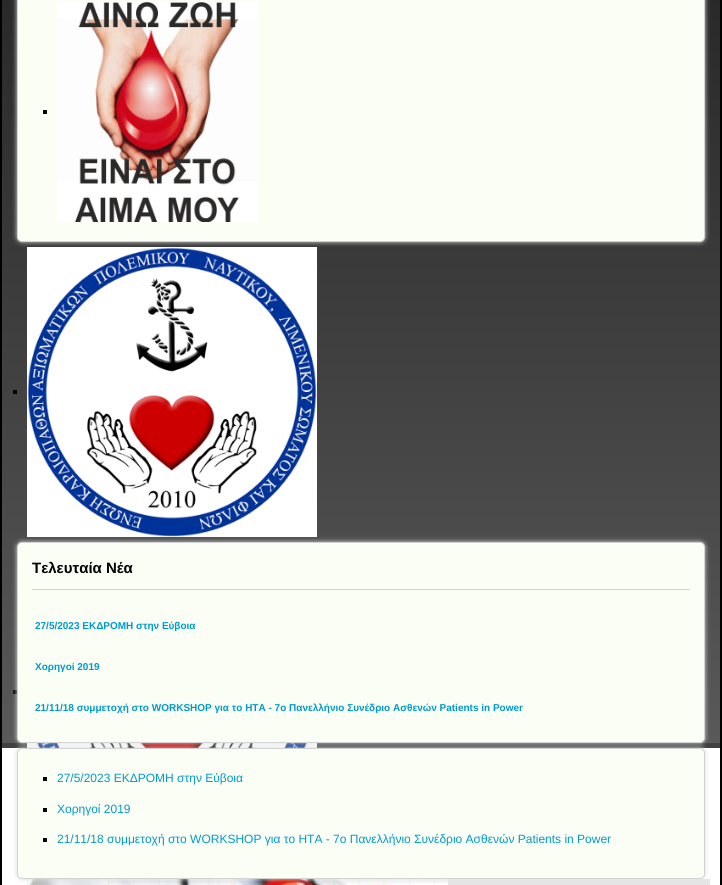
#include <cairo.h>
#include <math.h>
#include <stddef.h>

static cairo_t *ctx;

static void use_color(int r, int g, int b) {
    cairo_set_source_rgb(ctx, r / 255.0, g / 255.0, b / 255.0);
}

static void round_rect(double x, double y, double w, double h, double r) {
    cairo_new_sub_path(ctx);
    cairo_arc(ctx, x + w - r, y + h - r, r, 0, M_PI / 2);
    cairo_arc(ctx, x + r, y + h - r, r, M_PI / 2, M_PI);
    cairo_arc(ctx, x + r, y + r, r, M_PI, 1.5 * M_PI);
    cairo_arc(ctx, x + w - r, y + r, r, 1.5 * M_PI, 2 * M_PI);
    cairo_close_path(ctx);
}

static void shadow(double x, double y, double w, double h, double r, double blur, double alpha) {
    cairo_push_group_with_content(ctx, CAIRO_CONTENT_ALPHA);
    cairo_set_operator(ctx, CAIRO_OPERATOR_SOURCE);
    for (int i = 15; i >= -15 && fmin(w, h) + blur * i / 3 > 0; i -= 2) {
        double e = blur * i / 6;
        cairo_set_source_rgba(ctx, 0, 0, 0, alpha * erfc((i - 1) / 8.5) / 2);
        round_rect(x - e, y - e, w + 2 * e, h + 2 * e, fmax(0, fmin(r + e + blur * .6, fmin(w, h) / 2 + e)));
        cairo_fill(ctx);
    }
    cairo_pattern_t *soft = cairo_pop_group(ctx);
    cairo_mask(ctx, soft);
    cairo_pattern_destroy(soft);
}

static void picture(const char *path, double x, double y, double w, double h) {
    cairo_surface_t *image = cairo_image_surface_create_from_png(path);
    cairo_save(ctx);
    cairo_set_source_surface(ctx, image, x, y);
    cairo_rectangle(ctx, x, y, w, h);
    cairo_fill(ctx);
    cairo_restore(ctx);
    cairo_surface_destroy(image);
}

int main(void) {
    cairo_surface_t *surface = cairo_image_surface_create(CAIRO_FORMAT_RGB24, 722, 885);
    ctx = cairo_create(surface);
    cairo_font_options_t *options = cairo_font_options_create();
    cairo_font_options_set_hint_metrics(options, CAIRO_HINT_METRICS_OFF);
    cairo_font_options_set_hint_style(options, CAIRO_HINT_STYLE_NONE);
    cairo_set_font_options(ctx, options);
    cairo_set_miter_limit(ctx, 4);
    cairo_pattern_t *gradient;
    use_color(255, 255, 255);
    cairo_paint(ctx);
    use_color(0, 0, 0);
    cairo_rectangle(ctx, 720, 0, 2, 885);
    cairo_fill(ctx);
    cairo_rectangle(ctx, 0, 0, 2, 885);
    cairo_fill(ctx);
    gradient = cairo_pattern_create_linear(361, 743, 361, -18);
    cairo_pattern_add_color_stop_rgba(gradient, 0, 0.349, 0.349, 0.349, 1);
    cairo_pattern_add_color_stop_rgba(gradient, 1, 0.157, 0.157, 0.157, 1);
    cairo_set_source(ctx, gradient);
    cairo_pattern_destroy(gradient);
    cairo_rectangle(ctx, 2, 0, 718, 743);
    cairo_fill(ctx);
    use_color(64, 64, 64);
    cairo_rectangle(ctx, 2, 743, 718, 5);
    cairo_fill(ctx);
    use_color(218, 218, 218);
    shadow(17, -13, 688, 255, 5, 2.5, 1);
    use_color(250, 254, 245);
    round_rect(17.5, -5.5, 687, 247, 4.5);
    cairo_fill_preserve(ctx);
    use_color(211, 211, 211);
    cairo_set_line_width(ctx, 1);
    cairo_stroke(ctx);
    use_color(0, 0, 0);
    cairo_rectangle(ctx, 43, 110, 4, 4);
    cairo_fill(ctx);
    picture("img1.png", 57, 2, 200, 220);
    cairo_rectangle(ctx, 13, 390, 4, 4);
    cairo_fill(ctx);
    picture("img2.png", 27, 247, 290, 290);
    cairo_rectangle(ctx, 13, 690, 4, 4);
    cairo_fill(ctx);
    picture("img3.png", 27, 743, 290, 5);
    picture("img4.png", 27, 879, 421, 6);
    use_color(218, 218, 218);
    shadow(17, 542, 688, 201, 5, 2.5, 1);
    use_color(250, 254, 245);
    round_rect(17.5, 542.5, 687, 200, 4.5);
    cairo_fill_preserve(ctx);
    use_color(211, 211, 211);
    cairo_stroke(ctx);
    cairo_rectangle(ctx, 32, 589, 658, 1);
    cairo_fill(ctx);
    cairo_select_font_face(ctx, "Liberation Sans", CAIRO_FONT_SLANT_NORMAL, CAIRO_FONT_WEIGHT_BOLD);
    cairo_set_font_size(ctx, 15);
    use_color(0, 0, 0);
    cairo_move_to(ctx, 32, 573);
    cairo_show_text(ctx, "Τελευταία Νέα");
    cairo_set_font_size(ctx, 10);
    use_color(0, 154, 202);
    cairo_move_to(ctx, 35, 629);
    cairo_show_text(ctx, "27/5/2023 ΕΚΔΡΟΜΗ στην Εύβοια");
    cairo_move_to(ctx, 35, 670);
    cairo_show_text(ctx, "Χορηγοί 2019");
    cairo_move_to(ctx, 35, 711);
    cairo_show_text(ctx, "21/11/18 συμμετοχή στο WORKSHOP για το HTA - 7ο Πανελλήνιο Συνέδριο Ασθενών Patients in Power");
    use_color(218, 218, 218);
    shadow(17, 748, 688, 131, 5, 2.5, 1);
    use_color(250, 254, 245);
    round_rect(17.5, 748.5, 687, 130, 4.5);
    cairo_fill_preserve(ctx);
    use_color(211, 211, 211);
    cairo_stroke(ctx);
    use_color(0, 0, 0);
    cairo_rectangle(ctx, 43, 777, 4, 4);
    cairo_fill(ctx);
    cairo_select_font_face(ctx, "Liberation Sans", CAIRO_FONT_SLANT_NORMAL, CAIRO_FONT_WEIGHT_NORMAL);
    cairo_set_font_size(ctx, 12);
    use_color(0, 154, 202);
    cairo_move_to(ctx, 57, 782);
    cairo_show_text(ctx, "27/5/2023 ΕΚΔΡΟΜΗ στην Εύβοια");
    use_color(0, 0, 0);
    cairo_rectangle(ctx, 43, 808, 4, 4);
    cairo_fill(ctx);
    use_color(0, 154, 202);
    cairo_move_to(ctx, 57, 813);
    cairo_show_text(ctx, "Χορηγοί 2019");
    use_color(0, 0, 0);
    cairo_rectangle(ctx, 43, 838, 4, 4);
    cairo_fill(ctx);
    use_color(0, 154, 202);
    cairo_move_to(ctx, 57, 843);
    cairo_show_text(ctx, "21/11/18 συμμετοχή στο WORKSHOP για το HTA - 7ο Πανελλήνιο Συνέδριο Ασθενών Patients in Power");
    use_color(229, 229, 229);
    cairo_rectangle(ctx, 448, 879, 262, 6);
    cairo_fill(ctx);
    cairo_surface_write_to_png(surface, "result.png");
    cairo_font_options_destroy(options);
    cairo_destroy(ctx);
    cairo_surface_destroy(surface);
    return 0;
}
